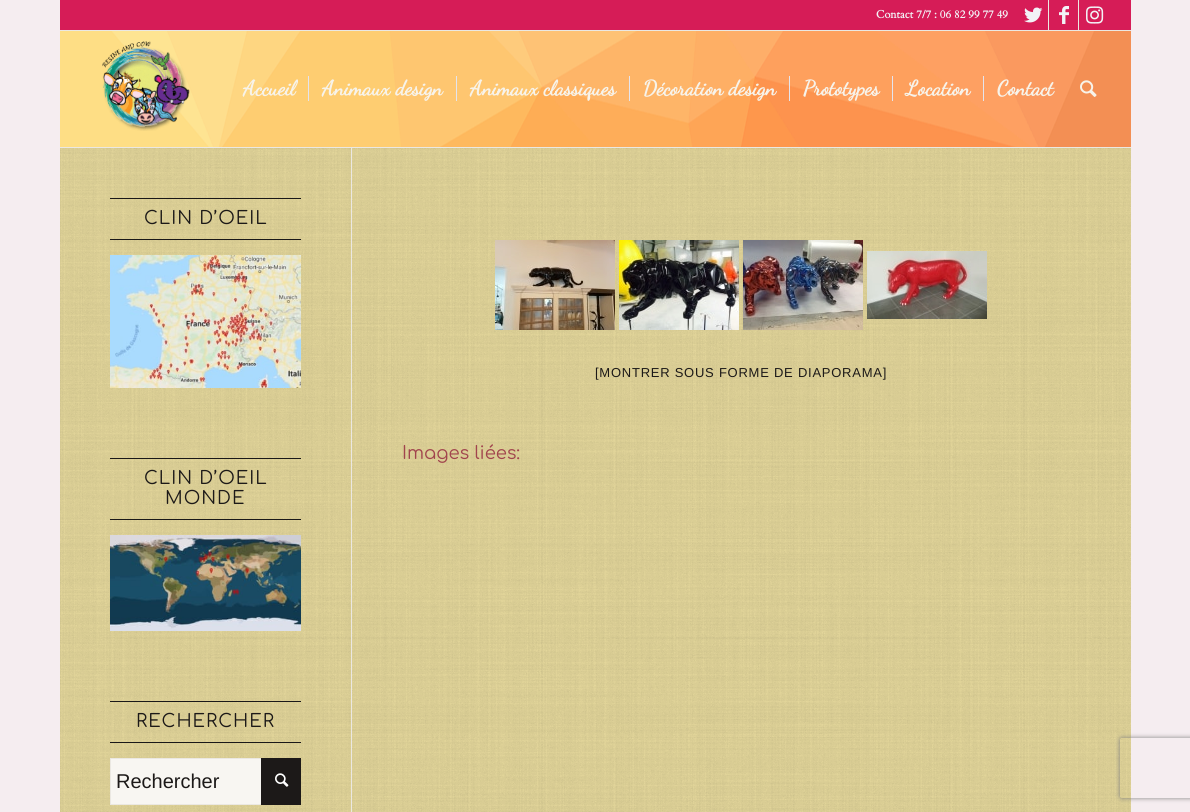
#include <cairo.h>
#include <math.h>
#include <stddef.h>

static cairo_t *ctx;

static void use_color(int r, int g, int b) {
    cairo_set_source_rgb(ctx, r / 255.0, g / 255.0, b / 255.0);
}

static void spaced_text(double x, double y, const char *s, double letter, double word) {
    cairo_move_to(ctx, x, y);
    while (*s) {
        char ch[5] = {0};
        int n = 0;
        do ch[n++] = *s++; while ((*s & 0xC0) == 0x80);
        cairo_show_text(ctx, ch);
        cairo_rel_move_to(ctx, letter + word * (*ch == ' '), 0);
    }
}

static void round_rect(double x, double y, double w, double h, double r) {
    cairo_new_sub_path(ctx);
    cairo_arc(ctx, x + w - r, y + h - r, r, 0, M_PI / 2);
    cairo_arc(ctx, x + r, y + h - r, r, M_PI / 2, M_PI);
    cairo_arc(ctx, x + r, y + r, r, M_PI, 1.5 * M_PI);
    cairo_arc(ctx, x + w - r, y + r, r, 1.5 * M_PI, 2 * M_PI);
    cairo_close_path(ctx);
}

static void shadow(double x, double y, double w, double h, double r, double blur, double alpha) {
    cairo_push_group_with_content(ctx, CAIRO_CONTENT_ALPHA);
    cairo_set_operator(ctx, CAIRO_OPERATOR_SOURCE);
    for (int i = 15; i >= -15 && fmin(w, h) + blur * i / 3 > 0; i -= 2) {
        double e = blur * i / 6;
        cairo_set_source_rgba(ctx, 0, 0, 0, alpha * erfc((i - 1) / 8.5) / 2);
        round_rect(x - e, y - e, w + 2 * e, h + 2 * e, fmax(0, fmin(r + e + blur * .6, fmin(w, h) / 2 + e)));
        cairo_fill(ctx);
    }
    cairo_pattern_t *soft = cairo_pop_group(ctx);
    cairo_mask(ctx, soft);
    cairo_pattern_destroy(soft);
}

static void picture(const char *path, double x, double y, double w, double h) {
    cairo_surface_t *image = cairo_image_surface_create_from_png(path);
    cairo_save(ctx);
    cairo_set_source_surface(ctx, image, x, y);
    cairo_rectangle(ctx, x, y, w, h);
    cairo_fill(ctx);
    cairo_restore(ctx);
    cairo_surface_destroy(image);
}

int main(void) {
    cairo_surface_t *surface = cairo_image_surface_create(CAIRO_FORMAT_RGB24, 1190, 812);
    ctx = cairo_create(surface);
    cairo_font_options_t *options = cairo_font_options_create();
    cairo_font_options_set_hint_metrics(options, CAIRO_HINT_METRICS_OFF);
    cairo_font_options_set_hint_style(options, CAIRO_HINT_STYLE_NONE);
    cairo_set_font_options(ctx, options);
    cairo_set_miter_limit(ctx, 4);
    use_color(245, 237, 240);
    cairo_paint(ctx);
    use_color(214, 28, 87);
    cairo_rectangle(ctx, 60, 0, 1071, 30);
    cairo_fill(ctx);
    use_color(235, 232, 226);
    cairo_rectangle(ctx, 60, 30, 1071, 1);
    cairo_fill(ctx);
    cairo_select_font_face(ctx, "Cardo", CAIRO_FONT_SLANT_NORMAL, CAIRO_FONT_WEIGHT_BOLD);
    cairo_set_font_size(ctx, 11);
    use_color(242, 243, 247);
    cairo_move_to(ctx, 876, 18);
    cairo_show_text(ctx, "Contact 7/7 : 06 82 99 77 49");
    use_color(235, 232, 226);
    cairo_rectangle(ctx, 1048, 0, 1, 30);
    cairo_fill(ctx);
    picture("img1.png", 1024, 7, 19, 16);
    cairo_rectangle(ctx, 1078, 0, 1, 30);
    cairo_fill(ctx);
    picture("img2.png", 1059, 6, 10, 18);
    picture("img3.png", 1086, 6, 18, 18);
    picture("img4.png", 60, 31, 1071, 116);
    cairo_rectangle(ctx, 60, 147, 1071, 1);
    cairo_fill(ctx);
    picture("img5.png", 102, 41, 88, 90);
    cairo_select_font_face(ctx, "Dancing Script", CAIRO_FONT_SLANT_NORMAL, CAIRO_FONT_WEIGHT_BOLD);
    cairo_set_font_size(ctx, 21);
    use_color(247, 243, 234);
    cairo_move_to(ctx, 243, 95);
    cairo_show_text(ctx, "Accueil");
    cairo_move_to(ctx, 322, 95);
    cairo_show_text(ctx, "Animaux design");
    use_color(228, 228, 237);
    cairo_rectangle(ctx, 308, 76, 1, 25);
    cairo_fill(ctx);
    use_color(247, 243, 234);
    cairo_move_to(ctx, 470, 95);
    cairo_show_text(ctx, "Animaux classiques");
    use_color(228, 228, 237);
    cairo_rectangle(ctx, 456, 76, 1, 25);
    cairo_fill(ctx);
    use_color(247, 243, 234);
    cairo_move_to(ctx, 643, 95);
    cairo_show_text(ctx, "Décoration design");
    use_color(228, 228, 237);
    cairo_rectangle(ctx, 629, 76, 1, 25);
    cairo_fill(ctx);
    use_color(247, 243, 234);
    cairo_move_to(ctx, 803, 95);
    cairo_show_text(ctx, "Prototypes");
    use_color(228, 228, 237);
    cairo_rectangle(ctx, 789, 76, 1, 25);
    cairo_fill(ctx);
    use_color(247, 243, 234);
    cairo_move_to(ctx, 906, 95);
    cairo_show_text(ctx, "Location");
    use_color(228, 228, 237);
    cairo_rectangle(ctx, 892, 76, 1, 25);
    cairo_fill(ctx);
    use_color(247, 243, 234);
    cairo_move_to(ctx, 997, 95);
    cairo_show_text(ctx, "Contact");
    use_color(228, 228, 237);
    cairo_rectangle(ctx, 983, 76, 1, 25);
    cairo_fill(ctx);
    picture("img6.png", 1080, 80, 17, 17);
    use_color(227, 214, 154);
    cairo_rectangle(ctx, 60, 148, 1071, 664);
    cairo_fill(ctx);
    picture("img7.png", 60, 148, 1071, 664);
    use_color(235, 232, 226);
    cairo_rectangle(ctx, 351, 148, 1, 664);
    cairo_fill(ctx);
    use_color(26, 24, 24);
    cairo_rectangle(ctx, 110, 198, 191, 1);
    cairo_fill(ctx);
    cairo_rectangle(ctx, 110, 239, 191, 1);
    cairo_fill(ctx);
    cairo_select_font_face(ctx, "Comfortaa", CAIRO_FONT_SLANT_NORMAL, CAIRO_FONT_WEIGHT_NORMAL);
    cairo_set_font_size(ctx, 18);
    use_color(28, 25, 24);
    spaced_text(144, 224, "CLIN D’OEIL", 1, 0);
    picture("img8.png", 110, 255, 191, 133);
    use_color(26, 24, 24);
    cairo_rectangle(ctx, 110, 458, 191, 1);
    cairo_fill(ctx);
    cairo_rectangle(ctx, 110, 519, 191, 1);
    cairo_fill(ctx);
    use_color(28, 25, 24);
    spaced_text(144, 484, "CLIN D’OEIL", 1, 0);
    spaced_text(165, 504, "MONDE", 1, 0);
    picture("img9.png", 110, 535, 191, 96);
    use_color(26, 24, 24);
    cairo_rectangle(ctx, 110, 701, 191, 1);
    cairo_fill(ctx);
    cairo_rectangle(ctx, 110, 742, 191, 1);
    cairo_fill(ctx);
    use_color(28, 25, 24);
    spaced_text(136, 727, "RECHERCHER", 1, 0);
    use_color(248, 246, 242);
    cairo_rectangle(ctx, 111, 759, 150, 45);
    cairo_fill(ctx);
    cairo_rectangle(ctx, 110.5, 758.5, 190, 46);
    use_color(235, 232, 226);
    cairo_set_line_width(ctx, 1);
    cairo_stroke(ctx);
    cairo_select_font_face(ctx, "Liberation Sans", CAIRO_FONT_SLANT_NORMAL, CAIRO_FONT_WEIGHT_NORMAL);
    cairo_set_font_size(ctx, 20);
    use_color(28, 25, 24);
    cairo_move_to(ctx, 116, 788);
    cairo_show_text(ctx, "Rechercher");
    cairo_rectangle(ctx, 261, 758, 40, 47);
    cairo_fill(ctx);
    picture("img10.png", 275, 773, 14, 14);
    picture("img11.png", 495, 240, 120, 90);
    picture("img12.png", 619, 240, 120, 90);
    picture("img13.png", 743, 240, 120, 90);
    picture("img14.png", 867, 251, 120, 68);
    cairo_set_font_size(ctx, 13);
    spaced_text(595, 377, "[MONTRER SOUS FORME DE DIAPORAMA]", 0.75, 0);
    cairo_select_font_face(ctx, "Comfortaa", CAIRO_FONT_SLANT_NORMAL, CAIRO_FONT_WEIGHT_NORMAL);
    cairo_set_font_size(ctx, 18);
    use_color(161, 68, 77);
    cairo_move_to(ctx, 402, 459);
    cairo_show_text(ctx, "Images liées:");
    cairo_save(ctx);
    cairo_set_fill_rule(ctx, CAIRO_FILL_RULE_EVEN_ODD);
    cairo_new_path(ctx);
    cairo_move_to(ctx, 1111, 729);
    cairo_line_to(ctx, 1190, 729);
    cairo_line_to(ctx, 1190, 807);
    cairo_line_to(ctx, 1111, 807);
    cairo_close_path(ctx);
    cairo_move_to(ctx, 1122, 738);
    cairo_line_to(ctx, 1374, 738);
    cairo_curve_to(ctx, 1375, 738, 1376, 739, 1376, 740);
    cairo_line_to(ctx, 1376, 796);
    cairo_curve_to(ctx, 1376, 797, 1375, 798, 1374, 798);
    cairo_line_to(ctx, 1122, 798);
    cairo_curve_to(ctx, 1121, 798, 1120, 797, 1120, 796);
    cairo_line_to(ctx, 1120, 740);
    cairo_curve_to(ctx, 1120, 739, 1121, 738, 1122, 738);
    cairo_close_path(ctx);
    cairo_clip(ctx);
    use_color(128, 128, 128);
    shadow(1120, 738, 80, 60, 2, 2.5, 1);
    cairo_restore(ctx);
    cairo_surface_write_to_png(surface, "result.png");
    cairo_font_options_destroy(options);
    cairo_destroy(ctx);
    cairo_surface_destroy(surface);
    return 0;
}
